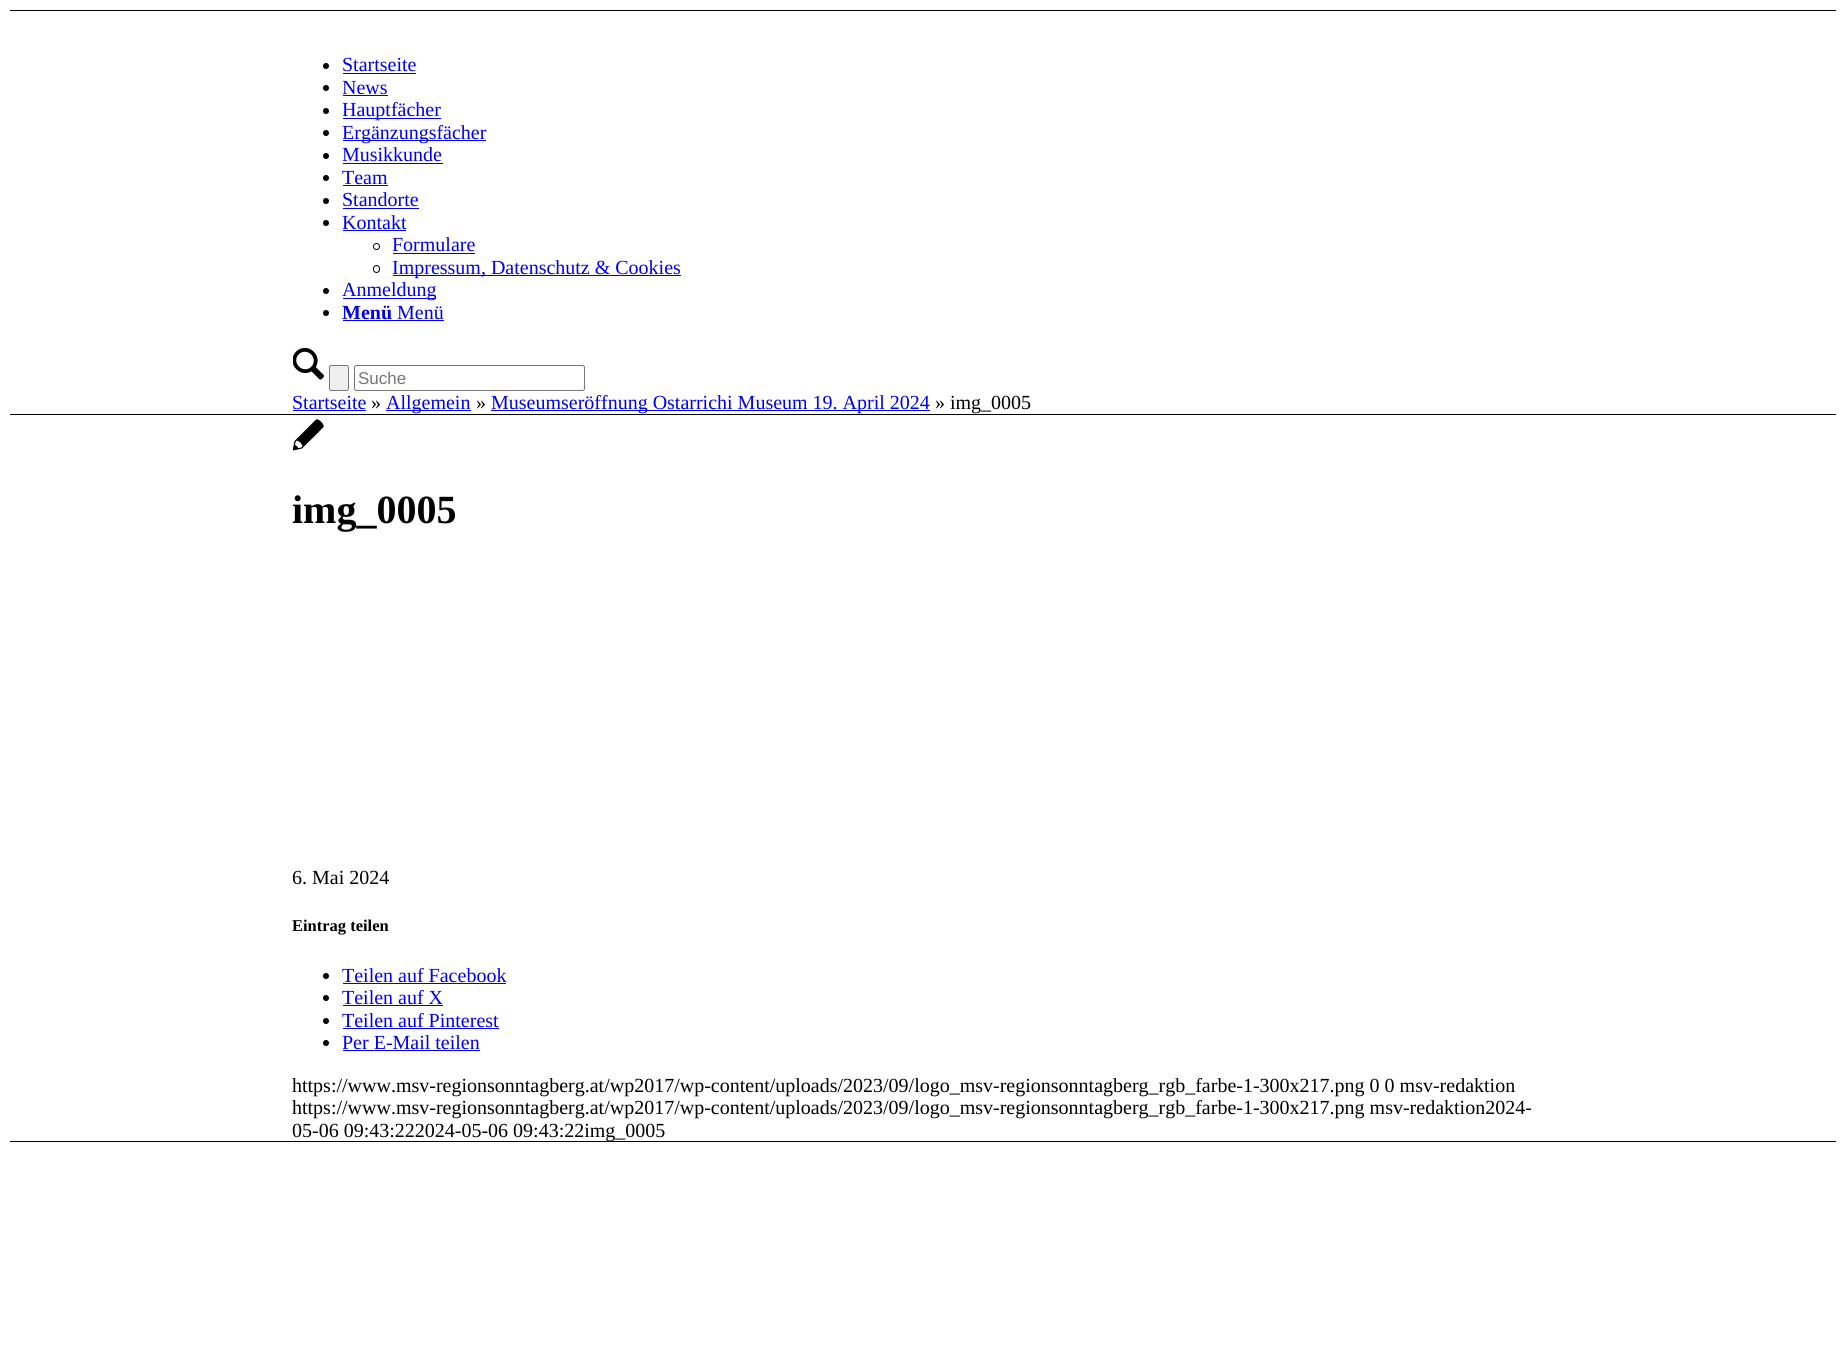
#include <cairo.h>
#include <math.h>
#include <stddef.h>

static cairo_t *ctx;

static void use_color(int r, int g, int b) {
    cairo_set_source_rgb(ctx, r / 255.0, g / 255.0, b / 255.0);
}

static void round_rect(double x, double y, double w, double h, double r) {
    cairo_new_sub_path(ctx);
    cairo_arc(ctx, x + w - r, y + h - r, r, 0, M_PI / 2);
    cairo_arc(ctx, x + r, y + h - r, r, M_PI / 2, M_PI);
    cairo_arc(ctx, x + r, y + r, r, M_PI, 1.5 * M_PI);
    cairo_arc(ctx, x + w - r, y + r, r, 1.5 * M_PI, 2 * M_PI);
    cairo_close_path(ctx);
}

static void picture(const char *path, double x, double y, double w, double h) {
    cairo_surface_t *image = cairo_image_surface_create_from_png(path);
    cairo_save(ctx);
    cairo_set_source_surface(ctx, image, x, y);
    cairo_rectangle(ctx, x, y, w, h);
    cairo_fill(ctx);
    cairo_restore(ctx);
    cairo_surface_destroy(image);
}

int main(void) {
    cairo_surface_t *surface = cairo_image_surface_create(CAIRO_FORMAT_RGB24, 1846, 1351);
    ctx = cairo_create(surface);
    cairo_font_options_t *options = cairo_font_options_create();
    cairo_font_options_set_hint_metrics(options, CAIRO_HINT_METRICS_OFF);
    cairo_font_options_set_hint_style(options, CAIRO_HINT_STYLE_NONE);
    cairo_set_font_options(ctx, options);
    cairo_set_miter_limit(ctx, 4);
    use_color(255, 255, 255);
    cairo_paint(ctx);
    use_color(0, 0, 0);
    cairo_rectangle(ctx, 10, 10, 1826, 1);
    cairo_fill(ctx);
    cairo_arc(ctx, 326, 66, 3, 0, 2 * M_PI);
    cairo_fill(ctx);
    cairo_select_font_face(ctx, "Liberation Serif", CAIRO_FONT_SLANT_NORMAL, CAIRO_FONT_WEIGHT_NORMAL);
    cairo_set_font_size(ctx, 20);
    use_color(0, 0, 238);
    cairo_move_to(ctx, 342, 71);
    cairo_show_text(ctx, "Startseite");
    cairo_rectangle(ctx, 343, 73, 73, 1);
    cairo_fill(ctx);
    use_color(0, 0, 0);
    cairo_arc(ctx, 326, 88, 3, 0, 2 * M_PI);
    cairo_fill(ctx);
    use_color(0, 0, 238);
    cairo_move_to(ctx, 342, 94);
    cairo_show_text(ctx, "News");
    cairo_rectangle(ctx, 343, 95, 45, 1);
    cairo_fill(ctx);
    use_color(0, 0, 0);
    cairo_arc(ctx, 326, 111, 3, 0, 2 * M_PI);
    cairo_fill(ctx);
    use_color(0, 0, 238);
    cairo_rectangle(ctx, 343, 118, 98, 1);
    cairo_fill(ctx);
    cairo_move_to(ctx, 342, 116);
    cairo_show_text(ctx, "Hauptfächer");
    use_color(0, 0, 0);
    cairo_new_path(ctx);
    cairo_arc(ctx, 326, 133, 3, 0, 2 * M_PI);
    cairo_fill(ctx);
    use_color(0, 0, 238);
    cairo_rectangle(ctx, 343, 140, 143, 1);
    cairo_fill(ctx);
    cairo_move_to(ctx, 342, 139);
    cairo_show_text(ctx, "Ergänzungsfächer");
    use_color(0, 0, 0);
    cairo_new_path(ctx);
    cairo_arc(ctx, 326, 156, 3, 0, 2 * M_PI);
    cairo_fill(ctx);
    use_color(0, 0, 238);
    cairo_move_to(ctx, 342, 161);
    cairo_show_text(ctx, "Musikkunde");
    cairo_rectangle(ctx, 343, 163, 100, 1);
    cairo_fill(ctx);
    use_color(0, 0, 0);
    cairo_arc(ctx, 326, 178, 3, 0, 2 * M_PI);
    cairo_fill(ctx);
    use_color(0, 0, 238);
    cairo_move_to(ctx, 342, 184);
    cairo_show_text(ctx, "Team");
    cairo_rectangle(ctx, 343, 185, 45, 1);
    cairo_fill(ctx);
    use_color(0, 0, 0);
    cairo_arc(ctx, 326, 201, 3, 0, 2 * M_PI);
    cairo_fill(ctx);
    use_color(0, 0, 238);
    cairo_move_to(ctx, 342, 206);
    cairo_show_text(ctx, "Standorte");
    cairo_rectangle(ctx, 343, 208, 76, 1);
    cairo_fill(ctx);
    use_color(0, 0, 0);
    cairo_arc(ctx, 326, 223, 3, 0, 2 * M_PI);
    cairo_fill(ctx);
    use_color(0, 0, 238);
    cairo_move_to(ctx, 342, 229);
    cairo_show_text(ctx, "Kontakt");
    cairo_rectangle(ctx, 343, 230, 63, 1);
    cairo_fill(ctx);
    cairo_arc(ctx, 376.5, 246.5, 3, 0, 2 * M_PI);
    use_color(0, 0, 0);
    cairo_set_line_width(ctx, 1);
    cairo_stroke(ctx);
    use_color(0, 0, 238);
    cairo_move_to(ctx, 392, 251);
    cairo_show_text(ctx, "Formulare");
    cairo_rectangle(ctx, 393, 253, 82, 1);
    cairo_fill(ctx);
    round_rect(373.5, 265.5, 6, 7, 3);
    use_color(0, 0, 0);
    cairo_stroke(ctx);
    use_color(0, 0, 238);
    cairo_rectangle(ctx, 393, 275, 288, 1);
    cairo_fill(ctx);
    cairo_move_to(ctx, 392, 274);
    cairo_show_text(ctx, "Impressum, Datenschutz & Cookies");
    use_color(0, 0, 0);
    cairo_new_path(ctx);
    cairo_arc(ctx, 326, 291, 3, 0, 2 * M_PI);
    cairo_fill(ctx);
    use_color(0, 0, 238);
    cairo_rectangle(ctx, 343, 298, 93, 1);
    cairo_fill(ctx);
    cairo_move_to(ctx, 342, 296);
    cairo_show_text(ctx, "Anmeldung");
    use_color(0, 0, 0);
    cairo_new_path(ctx);
    cairo_arc(ctx, 326, 313, 3, 0, 2 * M_PI);
    cairo_fill(ctx);
    cairo_select_font_face(ctx, "Liberation Serif", CAIRO_FONT_SLANT_NORMAL, CAIRO_FONT_WEIGHT_BOLD);
    use_color(0, 0, 238);
    cairo_move_to(ctx, 342, 319);
    cairo_show_text(ctx, "Menü");
    cairo_rectangle(ctx, 343, 320, 101, 1);
    cairo_fill(ctx);
    cairo_select_font_face(ctx, "Liberation Serif", CAIRO_FONT_SLANT_NORMAL, CAIRO_FONT_WEIGHT_NORMAL);
    cairo_move_to(ctx, 397, 319);
    cairo_show_text(ctx, "Menü");
    picture("img1.png", 293, 347, 31, 33);
    use_color(239, 239, 239);
    round_rect(329.5, 365.5, 19, 25, 2);
    cairo_fill_preserve(ctx);
    use_color(118, 118, 118);
    cairo_stroke(ctx);
    round_rect(354.5, 365.5, 230, 25, 2);
    cairo_stroke(ctx);
    cairo_select_font_face(ctx, "Liberation Sans", CAIRO_FONT_SLANT_NORMAL, CAIRO_FONT_WEIGHT_NORMAL);
    cairo_set_font_size(ctx, 17);
    use_color(117, 117, 117);
    cairo_move_to(ctx, 358, 384);
    cairo_show_text(ctx, "Suche");
    cairo_select_font_face(ctx, "Liberation Serif", CAIRO_FONT_SLANT_NORMAL, CAIRO_FONT_WEIGHT_NORMAL);
    cairo_set_font_size(ctx, 20);
    use_color(0, 0, 238);
    cairo_move_to(ctx, 292, 409);
    cairo_show_text(ctx, "Startseite");
    cairo_rectangle(ctx, 293, 410, 73, 1);
    cairo_fill(ctx);
    use_color(0, 0, 0);
    cairo_move_to(ctx, 371, 409);
    cairo_show_text(ctx, "»");
    use_color(0, 0, 238);
    cairo_rectangle(ctx, 386, 410, 85, 1);
    cairo_fill(ctx);
    cairo_move_to(ctx, 386, 409);
    cairo_show_text(ctx, "Allgemein");
    use_color(0, 0, 0);
    cairo_move_to(ctx, 476, 409);
    cairo_show_text(ctx, "»");
    use_color(0, 0, 238);
    cairo_rectangle(ctx, 491, 410, 439, 1);
    cairo_fill(ctx);
    cairo_move_to(ctx, 491, 409);
    cairo_show_text(ctx, "Museumseröffnung Ostarrichi Museum 19. April 2024");
    use_color(0, 0, 0);
    cairo_move_to(ctx, 935, 409);
    cairo_show_text(ctx, "» img_0005");
    cairo_rectangle(ctx, 10, 414, 1826, 1);
    cairo_fill(ctx);
    picture("img2.png", 293, 419, 31, 32);
    cairo_select_font_face(ctx, "Liberation Serif", CAIRO_FONT_SLANT_NORMAL, CAIRO_FONT_WEIGHT_BOLD);
    cairo_set_font_size(ctx, 40);
    cairo_move_to(ctx, 292, 523);
    cairo_show_text(ctx, "img_0005");
    cairo_select_font_face(ctx, "Liberation Serif", CAIRO_FONT_SLANT_NORMAL, CAIRO_FONT_WEIGHT_NORMAL);
    cairo_set_font_size(ctx, 20);
    cairo_move_to(ctx, 292, 884);
    cairo_show_text(ctx, "6. Mai 2024");
    cairo_select_font_face(ctx, "Liberation Serif", CAIRO_FONT_SLANT_NORMAL, CAIRO_FONT_WEIGHT_BOLD);
    cairo_set_font_size(ctx, 16.5);
    cairo_move_to(ctx, 292, 931);
    cairo_show_text(ctx, "Eintrag teilen");
    cairo_new_path(ctx);
    cairo_arc(ctx, 326, 976, 3, 0, 2 * M_PI);
    cairo_fill(ctx);
    cairo_select_font_face(ctx, "Liberation Serif", CAIRO_FONT_SLANT_NORMAL, CAIRO_FONT_WEIGHT_NORMAL);
    cairo_set_font_size(ctx, 20);
    use_color(0, 0, 238);
    cairo_move_to(ctx, 342, 982);
    cairo_show_text(ctx, "Teilen auf Facebook");
    cairo_rectangle(ctx, 343, 983, 163, 1);
    cairo_fill(ctx);
    use_color(0, 0, 0);
    cairo_arc(ctx, 326, 998, 3, 0, 2 * M_PI);
    cairo_fill(ctx);
    use_color(0, 0, 238);
    cairo_move_to(ctx, 342, 1004);
    cairo_show_text(ctx, "Teilen auf X");
    cairo_rectangle(ctx, 343, 1005, 100, 1);
    cairo_fill(ctx);
    use_color(0, 0, 0);
    cairo_arc(ctx, 326, 1021, 3, 0, 2 * M_PI);
    cairo_fill(ctx);
    use_color(0, 0, 238);
    cairo_move_to(ctx, 342, 1027);
    cairo_show_text(ctx, "Teilen auf Pinterest");
    cairo_rectangle(ctx, 343, 1028, 156, 1);
    cairo_fill(ctx);
    use_color(0, 0, 0);
    cairo_arc(ctx, 326, 1043, 3, 0, 2 * M_PI);
    cairo_fill(ctx);
    use_color(0, 0, 238);
    cairo_move_to(ctx, 342, 1049);
    cairo_show_text(ctx, "Per E-Mail teilen");
    cairo_rectangle(ctx, 343, 1050, 137, 1);
    cairo_fill(ctx);
    use_color(0, 0, 0);
    cairo_move_to(ctx, 292, 1092);
    cairo_show_text(ctx, "https://www.msv-regionsonntagberg.at/wp2017/wp-content/uploads/2023/09/logo_msv-regionsonntagberg_rgb_farbe-1-300x217.png 0 0 msv-redaktion");
    cairo_move_to(ctx, 292, 1114);
    cairo_show_text(ctx, "https://www.msv-regionsonntagberg.at/wp2017/wp-content/uploads/2023/09/logo_msv-regionsonntagberg_rgb_farbe-1-300x217.png msv-redaktion2024-");
    cairo_rectangle(ctx, 10, 1141, 1826, 1);
    cairo_fill(ctx);
    cairo_move_to(ctx, 292, 1137);
    cairo_show_text(ctx, "05-06 09:43:222024-05-06 09:43:22img_0005");
    cairo_surface_write_to_png(surface, "result.png");
    cairo_font_options_destroy(options);
    cairo_destroy(ctx);
    cairo_surface_destroy(surface);
    return 0;
}
